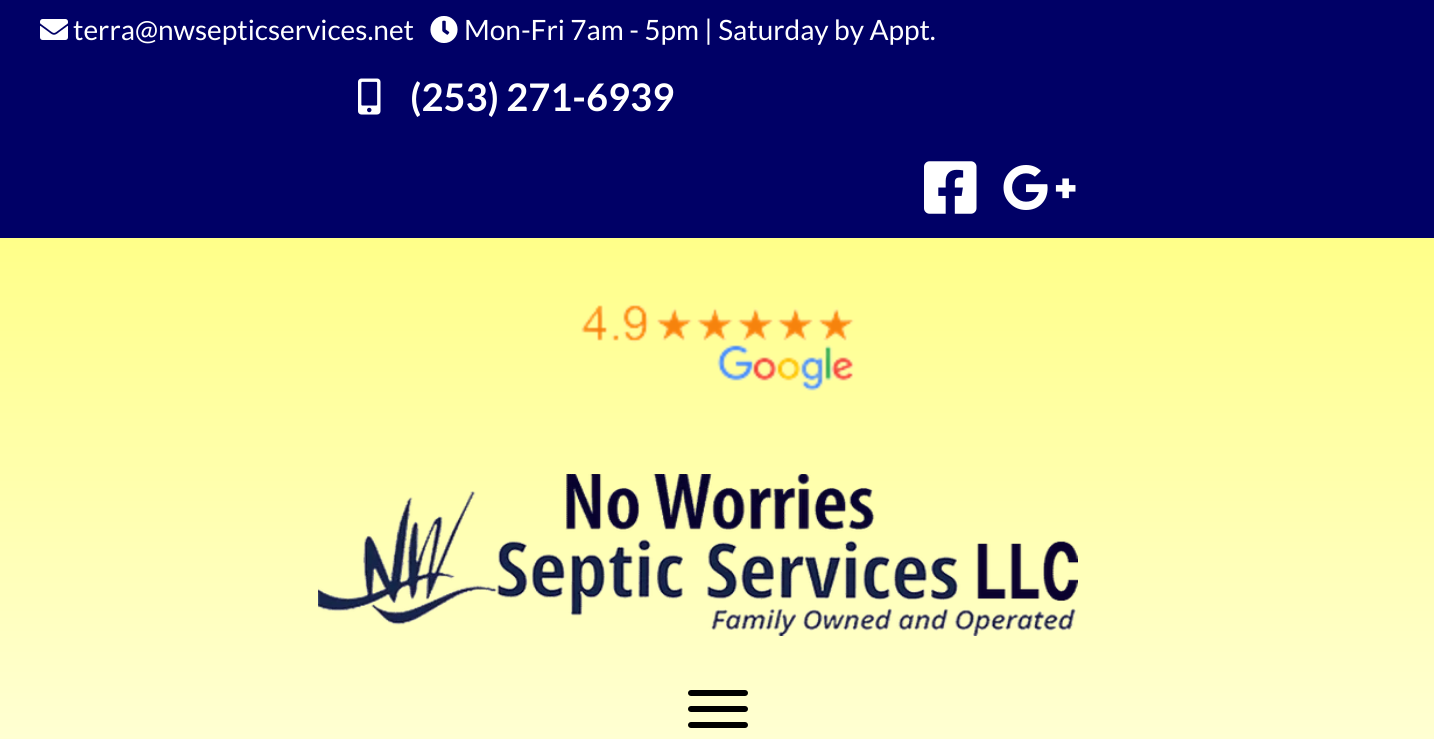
#include <cairo.h>
#include <math.h>
#include <stddef.h>

static cairo_t *ctx;

static void use_color(int r, int g, int b) {
    cairo_set_source_rgb(ctx, r / 255.0, g / 255.0, b / 255.0);
}

static void round_rect(double x, double y, double w, double h, double r) {
    cairo_new_sub_path(ctx);
    cairo_arc(ctx, x + w - r, y + h - r, r, 0, M_PI / 2);
    cairo_arc(ctx, x + r, y + h - r, r, M_PI / 2, M_PI);
    cairo_arc(ctx, x + r, y + r, r, M_PI, 1.5 * M_PI);
    cairo_arc(ctx, x + w - r, y + r, r, 1.5 * M_PI, 2 * M_PI);
    cairo_close_path(ctx);
}

static void picture(const char *path, double x, double y, double w, double h) {
    cairo_surface_t *image = cairo_image_surface_create_from_png(path);
    cairo_save(ctx);
    cairo_set_source_surface(ctx, image, x, y);
    cairo_rectangle(ctx, x, y, w, h);
    cairo_fill(ctx);
    cairo_restore(ctx);
    cairo_surface_destroy(image);
}

int main(void) {
    cairo_surface_t *surface = cairo_image_surface_create(CAIRO_FORMAT_RGB24, 1434, 739);
    ctx = cairo_create(surface);
    cairo_font_options_t *options = cairo_font_options_create();
    cairo_font_options_set_hint_metrics(options, CAIRO_HINT_METRICS_OFF);
    cairo_font_options_set_hint_style(options, CAIRO_HINT_STYLE_NONE);
    cairo_set_font_options(ctx, options);
    cairo_set_miter_limit(ctx, 4);
    cairo_pattern_t *gradient;
    use_color(0, 0, 102);
    cairo_paint(ctx);
    picture("img1.png", 40, 19, 28, 21);
    cairo_select_font_face(ctx, "Lato", CAIRO_FONT_SLANT_NORMAL, CAIRO_FONT_WEIGHT_NORMAL);
    cairo_set_font_size(ctx, 28);
    use_color(255, 255, 255);
    cairo_move_to(ctx, 73, 40);
    cairo_show_text(ctx, "terra@nwsepticservices.net");
    picture("img2.png", 430, 16, 28, 27);
    cairo_move_to(ctx, 464, 40);
    cairo_show_text(ctx, "Mon-Fri 7am - 5pm | Saturday by Appt.");
    picture("img3.png", 358, 78, 23, 37);
    cairo_select_font_face(ctx, "Lato", CAIRO_FONT_SLANT_NORMAL, CAIRO_FONT_WEIGHT_BOLD);
    cairo_set_font_size(ctx, 38);
    cairo_move_to(ctx, 410, 111);
    cairo_show_text(ctx, "(253) 271-6939");
    picture("img4.png", 924, 161, 53, 53);
    picture("img5.png", 1003, 165, 73, 45);
    gradient = cairo_pattern_create_linear(717, 238, 717, 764);
    cairo_pattern_add_color_stop_rgba(gradient, 0, 1, 1, 0.537, 1);
    cairo_pattern_add_color_stop_rgba(gradient, 1, 1, 1, 0.839, 1);
    cairo_set_source(ctx, gradient);
    cairo_pattern_destroy(gradient);
    cairo_rectangle(ctx, 0, 238, 1434, 501);
    cairo_fill(ctx);
    picture("img6.png", 581, 304, 274, 87);
    picture("img7.png", 318, 474, 760, 162);
    use_color(0, 0, 0);
    round_rect(688, 706, 60, 6, 3);
    cairo_fill(ctx);
    round_rect(688, 690, 60, 6, 3);
    cairo_fill(ctx);
    round_rect(688, 722, 60, 6, 3);
    cairo_fill(ctx);
    cairo_surface_write_to_png(surface, "result.png");
    cairo_font_options_destroy(options);
    cairo_destroy(ctx);
    cairo_surface_destroy(surface);
    return 0;
}
